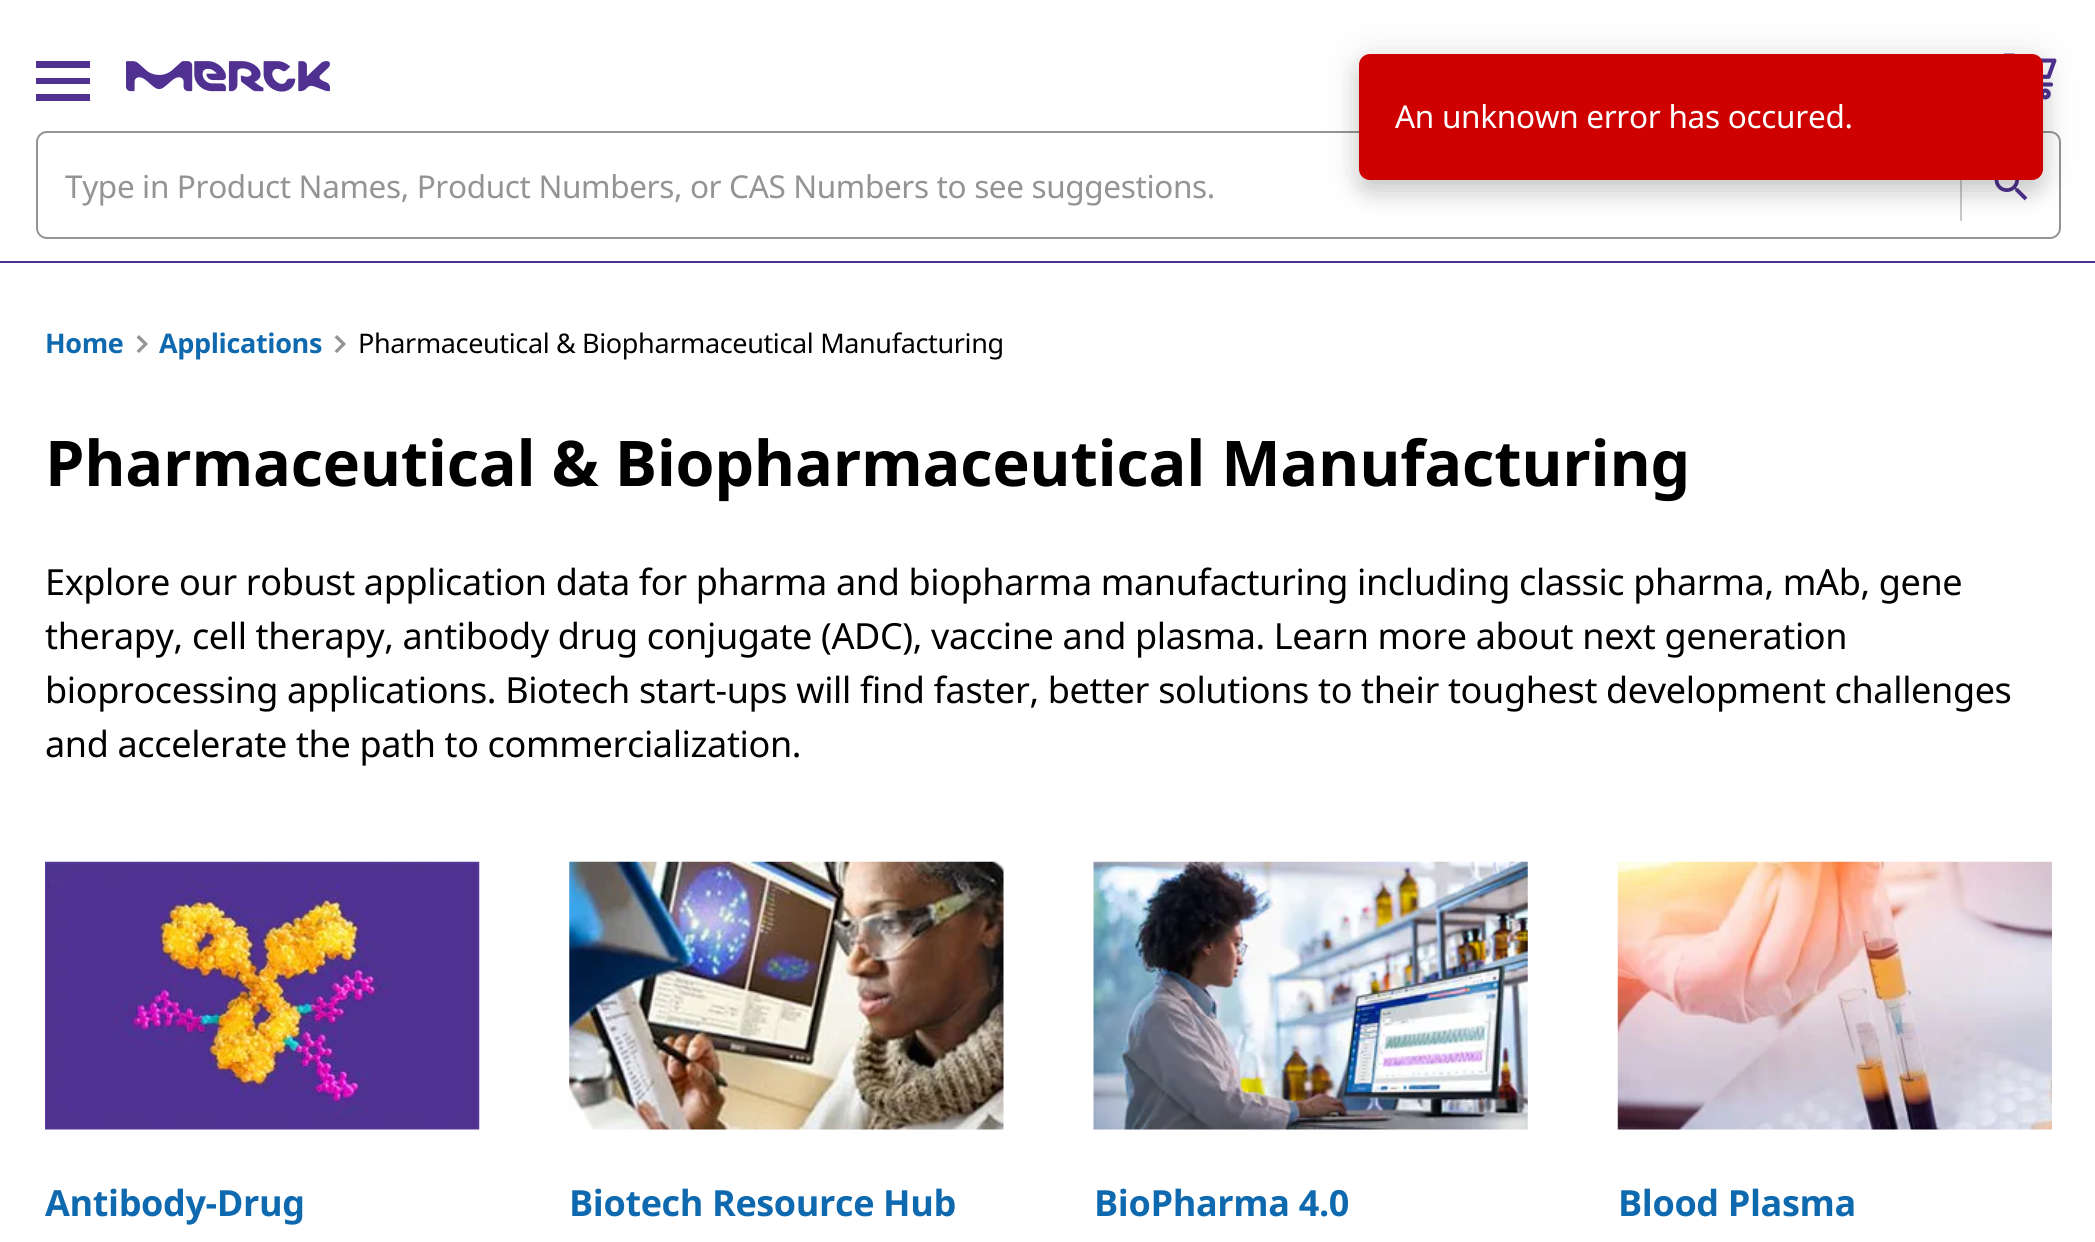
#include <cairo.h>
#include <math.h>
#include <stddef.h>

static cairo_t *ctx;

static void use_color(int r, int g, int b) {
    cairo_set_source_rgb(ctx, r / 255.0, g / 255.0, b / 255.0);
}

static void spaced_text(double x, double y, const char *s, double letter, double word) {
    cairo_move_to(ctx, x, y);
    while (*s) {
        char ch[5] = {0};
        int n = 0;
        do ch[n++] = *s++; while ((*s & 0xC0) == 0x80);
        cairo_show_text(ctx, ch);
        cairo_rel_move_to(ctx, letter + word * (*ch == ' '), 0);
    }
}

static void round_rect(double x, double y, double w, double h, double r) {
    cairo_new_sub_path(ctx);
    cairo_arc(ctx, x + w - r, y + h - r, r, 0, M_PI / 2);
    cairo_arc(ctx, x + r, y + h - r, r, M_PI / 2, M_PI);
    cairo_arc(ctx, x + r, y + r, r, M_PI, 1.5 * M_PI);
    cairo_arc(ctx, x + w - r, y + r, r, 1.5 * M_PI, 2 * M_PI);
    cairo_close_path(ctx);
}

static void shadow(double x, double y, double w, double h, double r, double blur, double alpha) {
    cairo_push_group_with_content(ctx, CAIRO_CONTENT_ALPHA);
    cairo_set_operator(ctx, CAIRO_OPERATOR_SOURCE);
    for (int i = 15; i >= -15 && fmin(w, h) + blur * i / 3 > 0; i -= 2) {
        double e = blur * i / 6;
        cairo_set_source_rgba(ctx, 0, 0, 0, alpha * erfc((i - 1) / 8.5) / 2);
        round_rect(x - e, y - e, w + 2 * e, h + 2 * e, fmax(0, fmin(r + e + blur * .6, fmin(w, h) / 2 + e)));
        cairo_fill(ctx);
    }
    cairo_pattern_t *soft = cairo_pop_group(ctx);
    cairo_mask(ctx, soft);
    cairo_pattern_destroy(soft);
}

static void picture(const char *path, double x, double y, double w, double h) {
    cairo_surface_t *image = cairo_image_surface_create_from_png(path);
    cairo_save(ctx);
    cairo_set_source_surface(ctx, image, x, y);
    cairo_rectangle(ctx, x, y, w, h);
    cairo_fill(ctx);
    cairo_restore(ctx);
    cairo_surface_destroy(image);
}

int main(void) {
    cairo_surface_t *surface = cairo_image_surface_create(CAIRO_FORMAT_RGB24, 2095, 1242);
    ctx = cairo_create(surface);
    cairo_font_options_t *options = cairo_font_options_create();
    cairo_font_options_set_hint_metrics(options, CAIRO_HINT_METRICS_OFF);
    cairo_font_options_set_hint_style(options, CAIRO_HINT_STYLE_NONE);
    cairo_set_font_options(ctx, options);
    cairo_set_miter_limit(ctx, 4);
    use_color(255, 255, 255);
    cairo_paint(ctx);
    picture("img2.png", 2003, 53, 54, 47);
    round_rect(37, 132, 2023, 106, 10);
    use_color(148, 148, 148);
    cairo_stroke(ctx);
    use_color(201, 201, 201);
    cairo_rectangle(ctx, 1960, 180, 2, 41);
    cairo_fill(ctx);
    picture("img3.png", 1994, 180, 34, 21);
    use_color(0, 0, 0);
    shadow(1359, 56, 684, 126, 11, 20, 0.12);
    shadow(1359, 68, 684, 126, 11, 11, 0.14);
    use_color(206, 0, 0);
    round_rect(1359, 54, 684, 126, 11);
    cairo_fill(ctx);
    cairo_select_font_face(ctx, "Noto Sans", CAIRO_FONT_SLANT_NORMAL, CAIRO_FONT_WEIGHT_NORMAL);
    cairo_set_font_size(ctx, 31.5);
    use_color(255, 255, 255);
    spaced_text(1395, 128, "An unknown error has occured.", -0.3, 0);
    cairo_save(ctx);
    cairo_rectangle(ctx, 36, 54, 54, 54);
    cairo_clip(ctx);
    use_color(80, 49, 145);
    cairo_new_path(ctx);
    cairo_move_to(ctx, 33, 101);
    cairo_line_to(ctx, 93, 101);
    cairo_line_to(ctx, 93, 94);
    cairo_line_to(ctx, 33, 94);
    cairo_close_path(ctx);
    cairo_move_to(ctx, 33, 84);
    cairo_line_to(ctx, 93, 84);
    cairo_line_to(ctx, 93, 78);
    cairo_line_to(ctx, 33, 78);
    cairo_close_path(ctx);
    cairo_move_to(ctx, 33, 61);
    cairo_line_to(ctx, 33, 68);
    cairo_line_to(ctx, 93, 68);
    cairo_line_to(ctx, 93, 61);
    cairo_close_path(ctx);
    cairo_fill(ctx);
    cairo_restore(ctx);
    picture("img1.png", 126, 61, 204, 31);
    use_color(80, 49, 145);
    cairo_rectangle(ctx, 0, 261, 2095, 2);
    cairo_fill(ctx);
    use_color(148, 148, 148);
    spaced_text(65, 198, "Type in Product Names, Product Numbers, or CAS Numbers to see suggestions.", -0.36, 0);
    cairo_select_font_face(ctx, "Noto Sans", CAIRO_FONT_SLANT_NORMAL, CAIRO_FONT_WEIGHT_BOLD);
    cairo_set_font_size(ctx, 27);
    use_color(15, 105, 175);
    spaced_text(45, 353, "Home", -0.36, 0);
    use_color(148, 148, 148);
    cairo_new_path(ctx);
    cairo_move_to(ctx, 136.5, 351);
    cairo_line_to(ctx, 143.5, 344);
    cairo_line_to(ctx, 136.5, 337.5);
    cairo_line_to(ctx, 139, 335);
    cairo_line_to(ctx, 148, 344);
    cairo_line_to(ctx, 139, 353);
    cairo_close_path(ctx);
    cairo_fill(ctx);
    use_color(15, 105, 175);
    spaced_text(159, 353, "Applications", -0.36, 0);
    use_color(148, 148, 148);
    cairo_new_path(ctx);
    cairo_move_to(ctx, 334.5, 351);
    cairo_line_to(ctx, 341.5, 344);
    cairo_line_to(ctx, 334.5, 337.5);
    cairo_line_to(ctx, 337, 335);
    cairo_line_to(ctx, 346, 344);
    cairo_line_to(ctx, 337, 353);
    cairo_close_path(ctx);
    cairo_fill(ctx);
    cairo_select_font_face(ctx, "Noto Sans", CAIRO_FONT_SLANT_NORMAL, CAIRO_FONT_WEIGHT_NORMAL);
    use_color(0, 0, 0);
    spaced_text(358, 353, "Pharmaceutical & Biopharmaceutical Manufacturing", -0.36, 0);
    cairo_select_font_face(ctx, "Noto Sans", CAIRO_FONT_SLANT_NORMAL, CAIRO_FONT_WEIGHT_BOLD);
    cairo_set_font_size(ctx, 63);
    spaced_text(45, 486, "Pharmaceutical & Biopharmaceutical Manufacturing", -0.3, 0);
    cairo_select_font_face(ctx, "Noto Sans", CAIRO_FONT_SLANT_NORMAL, CAIRO_FONT_WEIGHT_NORMAL);
    cairo_set_font_size(ctx, 36);
    spaced_text(45, 595, "Explore our robust application data for pharma and biopharma manufacturing including classic pharma, mAb, gene", -0.36, 0);
    spaced_text(45, 649, "therapy, cell therapy, antibody drug conjugate (ADC), vaccine and plasma. Learn more about next generation", -0.36, 0);
    spaced_text(45, 703, "bioprocessing applications. Biotech start-ups will find faster, better solutions to their toughest development challenges", -0.36, 0);
    spaced_text(45, 757, "and accelerate the path to commercialization.", -0.36, 0);
    picture("img4.png", 45, 861, 435, 269);
    cairo_select_font_face(ctx, "Noto Sans", CAIRO_FONT_SLANT_NORMAL, CAIRO_FONT_WEIGHT_BOLD);
    use_color(15, 105, 175);
    spaced_text(45, 1216, "Antibody-Drug", -0.36, 0);
    picture("img5.png", 569, 861, 435, 269);
    spaced_text(569, 1216, "Biotech Resource Hub", -0.36, 0);
    picture("img6.png", 1093, 861, 435, 269);
    spaced_text(1094, 1216, "BioPharma 4.0", -0.36, 0);
    picture("img7.png", 1617, 861, 435, 269);
    spaced_text(1618, 1216, "Blood Plasma", -0.36, 0);
    cairo_surface_write_to_png(surface, "result.png");
    cairo_font_options_destroy(options);
    cairo_destroy(ctx);
    cairo_surface_destroy(surface);
    return 0;
}
